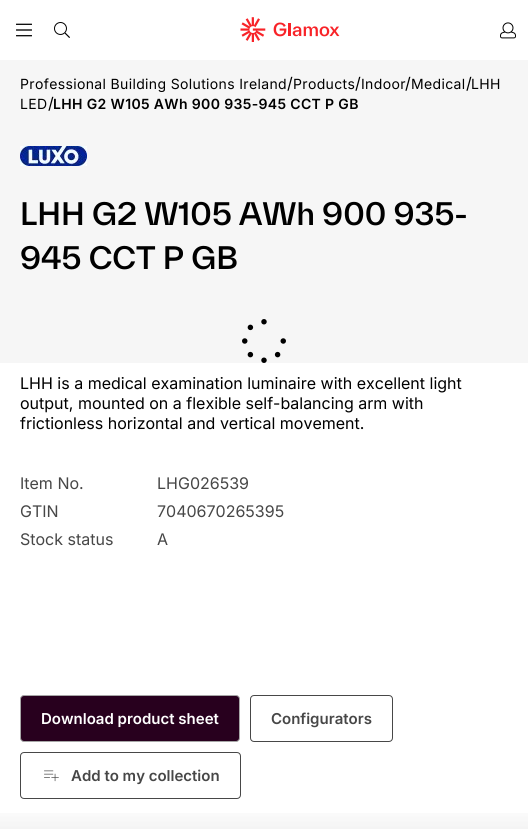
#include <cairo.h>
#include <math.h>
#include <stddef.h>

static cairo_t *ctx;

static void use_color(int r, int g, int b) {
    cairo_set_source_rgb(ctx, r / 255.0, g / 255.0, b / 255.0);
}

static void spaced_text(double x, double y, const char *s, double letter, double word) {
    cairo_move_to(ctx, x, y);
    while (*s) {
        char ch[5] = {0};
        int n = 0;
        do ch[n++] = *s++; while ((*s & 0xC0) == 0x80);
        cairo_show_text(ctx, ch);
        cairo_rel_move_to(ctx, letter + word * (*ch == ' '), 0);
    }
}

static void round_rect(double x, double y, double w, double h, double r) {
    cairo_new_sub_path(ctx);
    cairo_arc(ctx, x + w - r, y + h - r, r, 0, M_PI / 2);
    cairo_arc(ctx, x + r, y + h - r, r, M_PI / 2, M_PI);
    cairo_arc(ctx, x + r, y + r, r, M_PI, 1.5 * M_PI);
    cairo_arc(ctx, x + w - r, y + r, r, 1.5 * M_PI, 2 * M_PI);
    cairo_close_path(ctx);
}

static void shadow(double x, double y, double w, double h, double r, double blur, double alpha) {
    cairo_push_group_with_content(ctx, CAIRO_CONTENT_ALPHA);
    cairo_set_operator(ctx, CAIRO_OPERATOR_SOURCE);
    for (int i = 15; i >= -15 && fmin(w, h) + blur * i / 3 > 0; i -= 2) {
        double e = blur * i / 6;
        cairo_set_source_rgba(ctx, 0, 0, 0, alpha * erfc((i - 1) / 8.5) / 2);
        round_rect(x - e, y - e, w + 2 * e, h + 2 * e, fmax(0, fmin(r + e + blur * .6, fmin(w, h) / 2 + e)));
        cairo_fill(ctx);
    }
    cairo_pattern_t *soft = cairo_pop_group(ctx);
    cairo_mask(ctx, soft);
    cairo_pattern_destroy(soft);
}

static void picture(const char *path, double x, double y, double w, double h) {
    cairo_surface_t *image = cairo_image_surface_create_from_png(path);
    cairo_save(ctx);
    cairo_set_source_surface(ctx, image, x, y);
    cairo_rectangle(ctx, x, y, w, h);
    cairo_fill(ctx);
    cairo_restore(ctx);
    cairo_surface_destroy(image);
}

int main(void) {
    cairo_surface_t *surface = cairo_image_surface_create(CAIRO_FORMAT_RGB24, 528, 831);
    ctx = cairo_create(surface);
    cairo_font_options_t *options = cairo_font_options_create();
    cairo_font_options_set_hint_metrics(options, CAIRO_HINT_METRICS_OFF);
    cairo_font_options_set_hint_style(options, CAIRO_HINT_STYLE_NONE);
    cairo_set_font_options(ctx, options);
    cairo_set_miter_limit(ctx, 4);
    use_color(255, 255, 255);
    cairo_paint(ctx);
    picture("img1.png", 16, 23, 16, 14);
    picture("img2.png", 54, 22, 16, 16);
    picture("img3.png", 240, 17, 100, 25);
    picture("img4.png", 500, 22, 16, 17);
    use_color(246, 246, 246);
    cairo_rectangle(ctx, 0, 60, 528, 303);
    cairo_fill(ctx);
    cairo_select_font_face(ctx, "Inter", CAIRO_FONT_SLANT_NORMAL, CAIRO_FONT_WEIGHT_NORMAL);
    cairo_set_font_size(ctx, 14);
    use_color(0, 0, 0);
    spaced_text(20, 89, "Professional Building Solutions Ireland", 0.35, 0);
    cairo_set_font_size(ctx, 16);
    cairo_move_to(ctx, 287, 89);
    cairo_show_text(ctx, "/");
    cairo_set_font_size(ctx, 14);
    spaced_text(293, 89, "Products", 0.35, 0);
    cairo_set_font_size(ctx, 16);
    cairo_move_to(ctx, 355, 89);
    cairo_show_text(ctx, "/");
    cairo_set_font_size(ctx, 14);
    spaced_text(361, 89, "Indoor", 0.35, 0);
    cairo_set_font_size(ctx, 16);
    cairo_move_to(ctx, 405, 89);
    cairo_show_text(ctx, "/");
    cairo_set_font_size(ctx, 14);
    spaced_text(411, 89, "Medical", 0.35, 0);
    cairo_set_font_size(ctx, 16);
    cairo_move_to(ctx, 466, 89);
    cairo_show_text(ctx, "/");
    cairo_set_font_size(ctx, 14);
    spaced_text(471, 89, "LHH", 0.35, 0);
    spaced_text(20, 109, "LED", 0.35, 0);
    cairo_set_font_size(ctx, 16);
    cairo_move_to(ctx, 48, 109);
    cairo_show_text(ctx, "/");
    cairo_select_font_face(ctx, "Inter SemiBold", CAIRO_FONT_SLANT_NORMAL, CAIRO_FONT_WEIGHT_NORMAL);
    cairo_set_font_size(ctx, 14);
    spaced_text(53, 109, "LHH G2 W105 AWh 900 935-945 CCT P GB", 0.35, 0);
    picture("img5.png", 20, 146, 67, 20);
    cairo_select_font_face(ctx, "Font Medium", CAIRO_FONT_SLANT_NORMAL, CAIRO_FONT_WEIGHT_NORMAL);
    cairo_set_font_size(ctx, 30);
    cairo_move_to(ctx, 20, 225);
    cairo_show_text(ctx, "LHH G2 W105 AWh 900 935-");
    cairo_move_to(ctx, 20, 269);
    cairo_show_text(ctx, "945 CCT P GB");
    picture("img6.png", 242, 319, 44, 44);
    cairo_select_font_face(ctx, "Inter", CAIRO_FONT_SLANT_NORMAL, CAIRO_FONT_WEIGHT_NORMAL);
    cairo_set_font_size(ctx, 16);
    cairo_move_to(ctx, 20, 389);
    cairo_show_text(ctx, "LHH is a medical examination luminaire with excellent light");
    cairo_move_to(ctx, 20, 409);
    cairo_show_text(ctx, "output, mounted on a flexible self-balancing arm with");
    cairo_move_to(ctx, 20, 429);
    cairo_show_text(ctx, "frictionless horizontal and vertical movement.");
    use_color(71, 71, 71);
    cairo_move_to(ctx, 20, 489);
    cairo_show_text(ctx, "Item No.");
    cairo_move_to(ctx, 157, 489);
    cairo_show_text(ctx, "LHG026539");
    cairo_move_to(ctx, 20, 517);
    cairo_show_text(ctx, "GTIN");
    cairo_move_to(ctx, 157, 517);
    cairo_show_text(ctx, "7040670265395");
    cairo_move_to(ctx, 20, 545);
    cairo_show_text(ctx, "Stock status");
    cairo_move_to(ctx, 157, 545);
    cairo_show_text(ctx, "A");
    use_color(40, 0, 30);
    round_rect(20.5, 695.5, 219, 46, 3.5);
    cairo_fill_preserve(ctx);
    use_color(167, 167, 167);
    cairo_set_line_width(ctx, 1);
    cairo_stroke(ctx);
    cairo_select_font_face(ctx, "Inter SemiBold", CAIRO_FONT_SLANT_NORMAL, CAIRO_FONT_WEIGHT_NORMAL);
    cairo_set_font_size(ctx, 15);
    use_color(255, 255, 255);
    cairo_move_to(ctx, 41, 724);
    cairo_show_text(ctx, "Download product sheet");
    round_rect(250.5, 695.5, 142, 46, 3.5);
    use_color(71, 71, 71);
    cairo_stroke(ctx);
    cairo_move_to(ctx, 271, 724);
    cairo_show_text(ctx, "Configurators");
    round_rect(20.5, 752.5, 220, 46, 3.5);
    cairo_stroke(ctx);
    cairo_save(ctx);
    cairo_rectangle(ctx, 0, 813, 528, 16);
    cairo_clip(ctx);
    use_color(0, 0, 0);
    shadow(-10, 819, 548, 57, 0, 15, 0.06);
    cairo_restore(ctx);
    picture("img7.png", 44, 770, 15, 12);
    cairo_move_to(ctx, 71, 781);
    cairo_show_text(ctx, "Add to my collection");
    cairo_surface_write_to_png(surface, "result.png");
    cairo_font_options_destroy(options);
    cairo_destroy(ctx);
    cairo_surface_destroy(surface);
    return 0;
}
